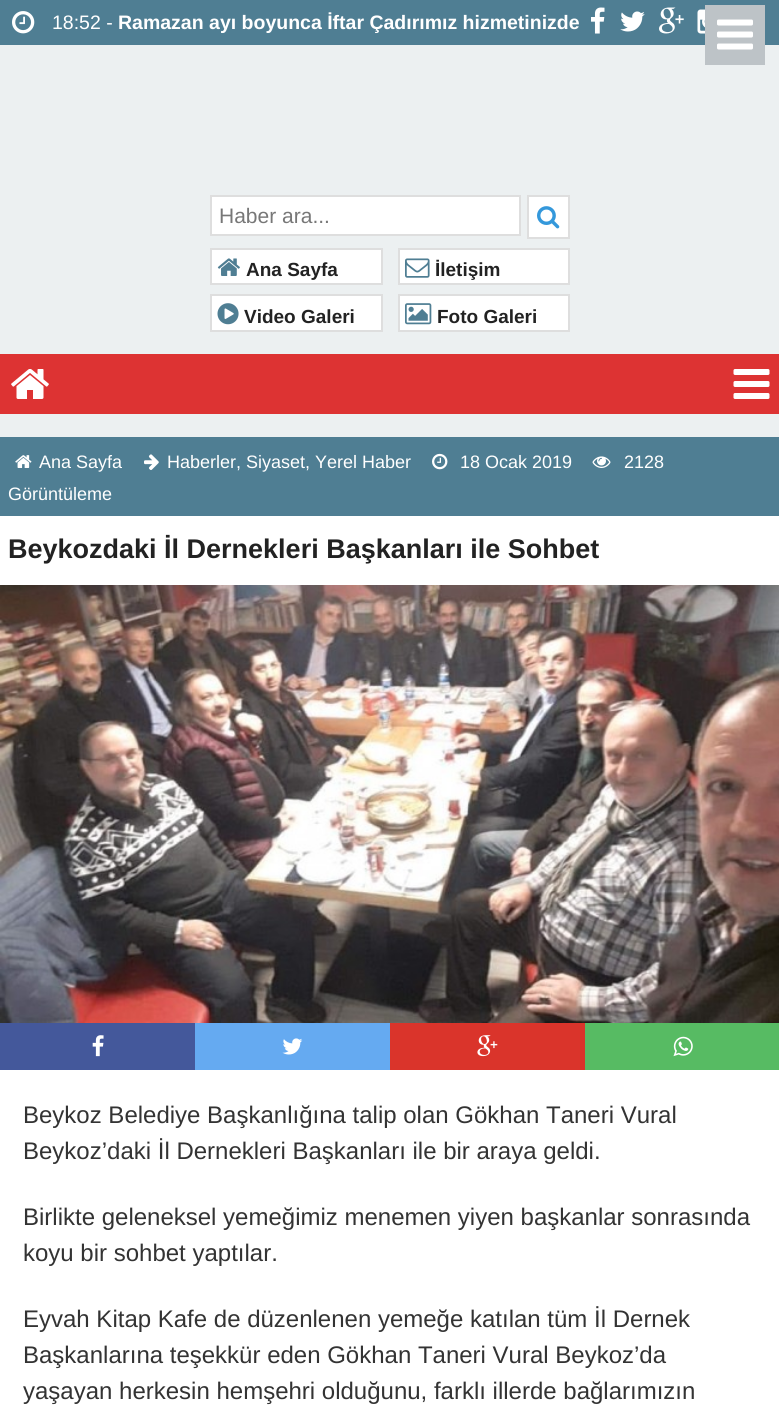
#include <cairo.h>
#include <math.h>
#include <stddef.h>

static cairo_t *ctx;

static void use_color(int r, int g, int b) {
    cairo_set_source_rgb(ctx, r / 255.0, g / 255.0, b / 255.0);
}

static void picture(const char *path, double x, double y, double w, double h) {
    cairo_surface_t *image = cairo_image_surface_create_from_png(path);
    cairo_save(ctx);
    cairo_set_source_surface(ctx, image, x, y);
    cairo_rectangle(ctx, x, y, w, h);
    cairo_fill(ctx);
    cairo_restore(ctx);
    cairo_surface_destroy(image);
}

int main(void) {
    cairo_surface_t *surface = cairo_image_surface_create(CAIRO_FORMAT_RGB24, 779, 1409);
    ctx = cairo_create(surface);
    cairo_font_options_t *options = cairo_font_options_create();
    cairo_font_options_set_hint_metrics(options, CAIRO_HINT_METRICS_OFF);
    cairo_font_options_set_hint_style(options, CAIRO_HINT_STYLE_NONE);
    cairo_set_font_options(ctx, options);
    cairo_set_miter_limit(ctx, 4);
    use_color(236, 240, 241);
    cairo_paint(ctx);
    use_color(221, 51, 51);
    cairo_rectangle(ctx, 0, 354, 779, 60);
    cairo_fill(ctx);
    use_color(79, 126, 147);
    cairo_rectangle(ctx, 0, 0, 779, 45);
    cairo_fill(ctx);
    use_color(189, 195, 199);
    cairo_rectangle(ctx, 705, 5, 60, 60);
    cairo_fill(ctx);
    picture("img1.png", 717, 19, 36, 31);
    picture("img2.png", 11, 369, 38, 30);
    picture("img3.png", 733, 369, 37, 30);
    picture("img4.png", 12, 11, 23, 23);
    cairo_select_font_face(ctx, "Liberation Sans", CAIRO_FONT_SLANT_NORMAL, CAIRO_FONT_WEIGHT_NORMAL);
    cairo_set_font_size(ctx, 19.5);
    use_color(255, 255, 255);
    cairo_move_to(ctx, 52, 29);
    cairo_show_text(ctx, "18:52 -");
    cairo_select_font_face(ctx, "Liberation Sans", CAIRO_FONT_SLANT_NORMAL, CAIRO_FONT_WEIGHT_BOLD);
    cairo_move_to(ctx, 118, 29);
    cairo_show_text(ctx, "Ramazan ayı boyunca İftar Çadırımız hizmetinizde");
    picture("img5.png", 591, 7, 14, 27);
    picture("img6.png", 620, 11, 25, 21);
    picture("img7.png", 659, 7, 25, 27);
    picture("img8.png", 697, 9, 8, 25);
    cairo_rectangle(ctx, 211, 196, 309, 39);
    cairo_fill_preserve(ctx);
    use_color(222, 222, 222);
    cairo_stroke(ctx);
    cairo_select_font_face(ctx, "Liberation Sans", CAIRO_FONT_SLANT_NORMAL, CAIRO_FONT_WEIGHT_NORMAL);
    cairo_set_font_size(ctx, 21);
    use_color(119, 119, 119);
    cairo_move_to(ctx, 219, 223);
    cairo_show_text(ctx, "Haber ara...");
    use_color(255, 255, 255);
    cairo_rectangle(ctx, 528, 196, 41, 42);
    cairo_fill_preserve(ctx);
    use_color(222, 222, 222);
    cairo_stroke(ctx);
    picture("img9.png", 537, 206, 23, 23);
    use_color(255, 255, 255);
    cairo_rectangle(ctx, 211, 249, 171, 35);
    cairo_fill_preserve(ctx);
    use_color(222, 222, 222);
    cairo_stroke(ctx);
    picture("img10.png", 217, 258, 23, 18);
    cairo_select_font_face(ctx, "Liberation Sans", CAIRO_FONT_SLANT_NORMAL, CAIRO_FONT_WEIGHT_BOLD);
    cairo_set_font_size(ctx, 19);
    use_color(34, 34, 34);
    cairo_move_to(ctx, 246, 276);
    cairo_show_text(ctx, "Ana Sayfa");
    use_color(255, 255, 255);
    cairo_rectangle(ctx, 399, 249, 170, 35);
    cairo_fill_preserve(ctx);
    use_color(222, 222, 222);
    cairo_stroke(ctx);
    picture("img11.png", 405, 258, 25, 20);
    use_color(34, 34, 34);
    cairo_move_to(ctx, 435, 276);
    cairo_show_text(ctx, "İletişim");
    use_color(255, 255, 255);
    cairo_rectangle(ctx, 211, 295, 171, 36);
    cairo_fill_preserve(ctx);
    use_color(222, 222, 222);
    cairo_stroke(ctx);
    picture("img12.png", 217, 303, 22, 22);
    use_color(34, 34, 34);
    cairo_move_to(ctx, 244, 323);
    cairo_show_text(ctx, "Video Galeri");
    use_color(255, 255, 255);
    cairo_rectangle(ctx, 399, 295, 170, 36);
    cairo_fill_preserve(ctx);
    use_color(222, 222, 222);
    cairo_stroke(ctx);
    picture("img13.png", 405, 303, 27, 22);
    use_color(34, 34, 34);
    cairo_move_to(ctx, 437, 323);
    cairo_show_text(ctx, "Foto Galeri");
    use_color(255, 255, 255);
    cairo_rectangle(ctx, 0, 516, 779, 893);
    cairo_fill(ctx);
    use_color(79, 126, 147);
    cairo_rectangle(ctx, 0, 437, 779, 79);
    cairo_fill(ctx);
    picture("img14.png", 144, 454, 15, 16);
    cairo_select_font_face(ctx, "Liberation Sans", CAIRO_FONT_SLANT_NORMAL, CAIRO_FONT_WEIGHT_NORMAL);
    cairo_set_font_size(ctx, 18);
    use_color(255, 255, 255);
    cairo_move_to(ctx, 167, 468);
    cairo_show_text(ctx, "Haberler, Siyaset, Yerel Haber");
    picture("img15.png", 432, 453, 16, 17);
    cairo_move_to(ctx, 460, 468);
    cairo_show_text(ctx, "18 Ocak 2019");
    picture("img16.png", 592, 456, 19, 12);
    cairo_move_to(ctx, 624, 468);
    cairo_show_text(ctx, "2128");
    cairo_move_to(ctx, 8, 500);
    cairo_show_text(ctx, "Görüntüleme");
    picture("img17.png", 15, 455, 17, 13);
    cairo_move_to(ctx, 39, 468);
    cairo_show_text(ctx, "Ana Sayfa");
    cairo_select_font_face(ctx, "Liberation Sans", CAIRO_FONT_SLANT_NORMAL, CAIRO_FONT_WEIGHT_BOLD);
    cairo_set_font_size(ctx, 27);
    use_color(34, 34, 34);
    cairo_move_to(ctx, 8, 558);
    cairo_show_text(ctx, "Beykozdaki İl Dernekleri Başkanları ile Sohbet");
    picture("img18.png", 0, 585, 779, 438);
    use_color(68, 88, 155);
    cairo_rectangle(ctx, 0, 1023, 195, 47);
    cairo_fill(ctx);
    picture("img19.png", 92, 1035, 12, 22);
    use_color(101, 170, 241);
    cairo_rectangle(ctx, 195, 1023, 195, 47);
    cairo_fill(ctx);
    picture("img20.png", 282, 1038, 21, 17);
    use_color(218, 52, 43);
    cairo_rectangle(ctx, 390, 1023, 195, 47);
    cairo_fill(ctx);
    picture("img21.png", 477, 1035, 21, 22);
    use_color(87, 187, 99);
    cairo_rectangle(ctx, 585, 1023, 194, 47);
    cairo_fill(ctx);
    picture("img22.png", 673, 1036, 20, 21);
    cairo_select_font_face(ctx, "Liberation Sans", CAIRO_FONT_SLANT_NORMAL, CAIRO_FONT_WEIGHT_NORMAL);
    cairo_set_font_size(ctx, 24);
    use_color(51, 51, 51);
    cairo_move_to(ctx, 23, 1123);
    cairo_show_text(ctx, "Beykoz Belediye Başkanlığına talip olan Gökhan Taneri Vural");
    cairo_move_to(ctx, 23, 1159);
    cairo_show_text(ctx, "Beykoz’daki İl Dernekleri Başkanları ile bir araya geldi.");
    cairo_move_to(ctx, 23, 1225);
    cairo_show_text(ctx, "Birlikte geleneksel yemeğimiz menemen yiyen başkanlar sonrasında");
    cairo_move_to(ctx, 23, 1261);
    cairo_show_text(ctx, "koyu bir sohbet yaptılar.");
    cairo_move_to(ctx, 23, 1327);
    cairo_show_text(ctx, "Eyvah Kitap Kafe de düzenlenen yemeğe katılan tüm İl Dernek");
    cairo_move_to(ctx, 23, 1363);
    cairo_show_text(ctx, "Başkanlarına teşekkür eden Gökhan Taneri Vural Beykoz’da");
    cairo_move_to(ctx, 23, 1399);
    cairo_show_text(ctx, "yaşayan herkesin hemşehri olduğunu, farklı illerde bağlarımızın");
    cairo_surface_write_to_png(surface, "result.png");
    cairo_font_options_destroy(options);
    cairo_destroy(ctx);
    cairo_surface_destroy(surface);
    return 0;
}
